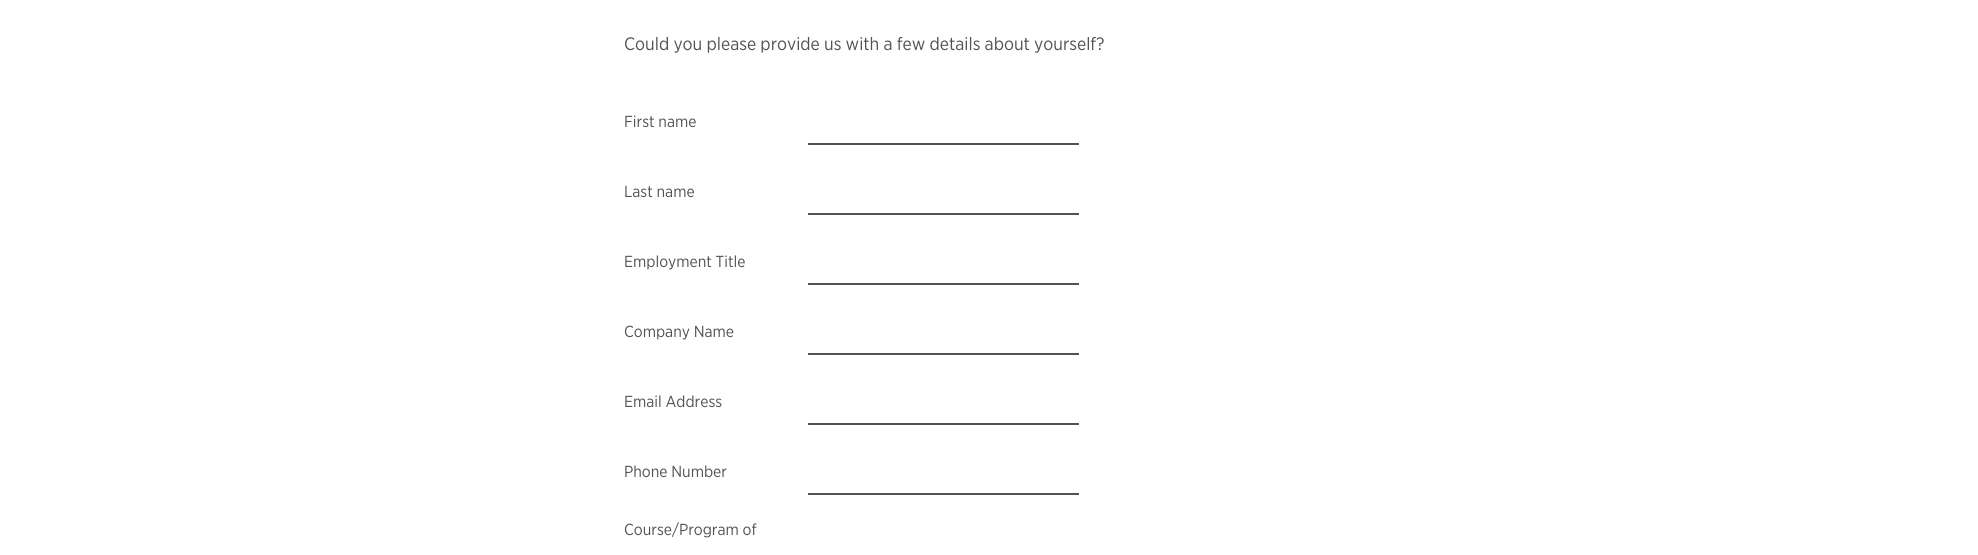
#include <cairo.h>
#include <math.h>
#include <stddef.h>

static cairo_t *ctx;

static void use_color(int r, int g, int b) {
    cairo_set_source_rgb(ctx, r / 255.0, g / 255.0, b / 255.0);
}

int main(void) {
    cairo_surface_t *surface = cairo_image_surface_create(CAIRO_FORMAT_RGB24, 1978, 555);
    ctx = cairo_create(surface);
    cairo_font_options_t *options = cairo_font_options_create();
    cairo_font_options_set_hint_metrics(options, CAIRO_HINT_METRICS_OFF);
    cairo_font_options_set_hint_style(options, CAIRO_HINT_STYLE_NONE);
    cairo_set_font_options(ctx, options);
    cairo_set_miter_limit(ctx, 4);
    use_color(255, 255, 255);
    cairo_paint(ctx);
    cairo_select_font_face(ctx, "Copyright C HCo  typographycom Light", CAIRO_FONT_SLANT_NORMAL, CAIRO_FONT_WEIGHT_NORMAL);
    cairo_set_font_size(ctx, 18);
    use_color(82, 82, 82);
    cairo_move_to(ctx, 624, 50);
    cairo_show_text(ctx, "Could you please provide us with a few details about yourself?");
    cairo_set_font_size(ctx, 16);
    cairo_move_to(ctx, 624, 127);
    cairo_show_text(ctx, "First name");
    cairo_rectangle(ctx, 808, 143, 271, 2);
    cairo_fill(ctx);
    cairo_move_to(ctx, 624, 197);
    cairo_show_text(ctx, "Last name");
    cairo_rectangle(ctx, 808, 213, 271, 2);
    cairo_fill(ctx);
    cairo_move_to(ctx, 624, 267);
    cairo_show_text(ctx, "Employment Title");
    cairo_rectangle(ctx, 808, 283, 271, 2);
    cairo_fill(ctx);
    cairo_move_to(ctx, 624, 337);
    cairo_show_text(ctx, "Company Name");
    cairo_rectangle(ctx, 808, 353, 271, 2);
    cairo_fill(ctx);
    cairo_move_to(ctx, 624, 407);
    cairo_show_text(ctx, "Email Address");
    cairo_rectangle(ctx, 808, 423, 271, 2);
    cairo_fill(ctx);
    cairo_move_to(ctx, 624, 477);
    cairo_show_text(ctx, "Phone Number");
    cairo_rectangle(ctx, 808, 493, 271, 2);
    cairo_fill(ctx);
    cairo_move_to(ctx, 624, 535);
    cairo_show_text(ctx, "Course/Program of");
    cairo_surface_write_to_png(surface, "result.png");
    cairo_font_options_destroy(options);
    cairo_destroy(ctx);
    cairo_surface_destroy(surface);
    return 0;
}
